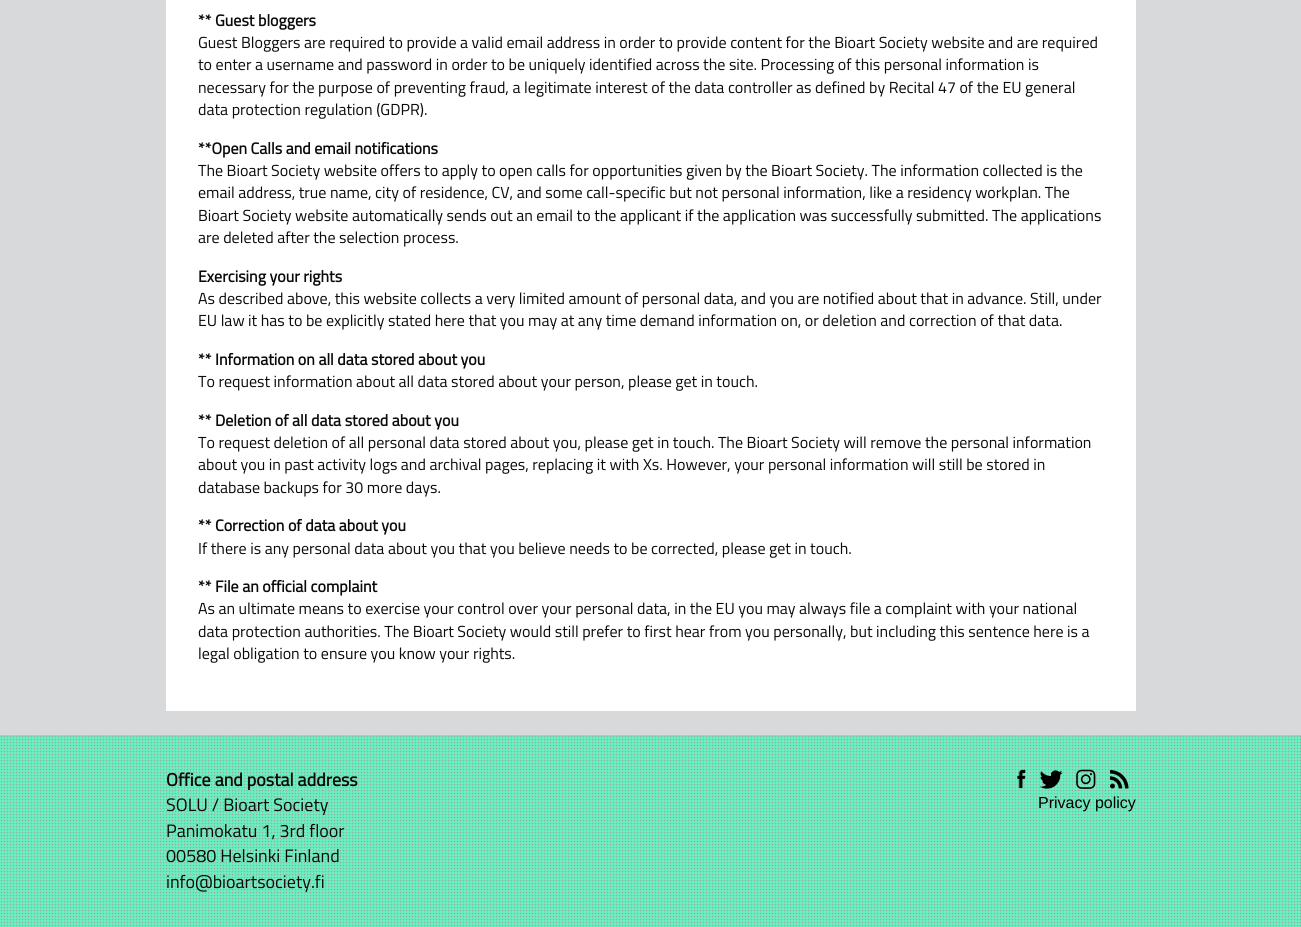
#include <cairo.h>
#include <math.h>
#include <stddef.h>

static cairo_t *ctx;

static void use_color(int r, int g, int b) {
    cairo_set_source_rgb(ctx, r / 255.0, g / 255.0, b / 255.0);
}

static void picture(const char *path, double x, double y, double w, double h) {
    cairo_surface_t *image = cairo_image_surface_create_from_png(path);
    cairo_save(ctx);
    cairo_set_source_surface(ctx, image, x, y);
    cairo_rectangle(ctx, x, y, w, h);
    cairo_fill(ctx);
    cairo_restore(ctx);
    cairo_surface_destroy(image);
}

int main(void) {
    cairo_surface_t *surface = cairo_image_surface_create(CAIRO_FORMAT_RGB24, 1301, 927);
    ctx = cairo_create(surface);
    cairo_font_options_t *options = cairo_font_options_create();
    cairo_font_options_set_hint_metrics(options, CAIRO_HINT_METRICS_OFF);
    cairo_font_options_set_hint_style(options, CAIRO_HINT_STYLE_NONE);
    cairo_set_font_options(ctx, options);
    cairo_set_miter_limit(ctx, 4);
    use_color(216, 217, 219);
    cairo_paint(ctx);
    use_color(255, 255, 255);
    cairo_rectangle(ctx, 166, 0, 970, 711);
    cairo_fill(ctx);
    cairo_select_font_face(ctx, "Titillium Web", CAIRO_FONT_SLANT_NORMAL, CAIRO_FONT_WEIGHT_BOLD);
    cairo_set_font_size(ctx, 16);
    use_color(10, 10, 10);
    cairo_move_to(ctx, 198, 26);
    cairo_show_text(ctx, "** Guest bloggers");
    cairo_select_font_face(ctx, "Titillium Web", CAIRO_FONT_SLANT_NORMAL, CAIRO_FONT_WEIGHT_NORMAL);
    cairo_move_to(ctx, 198, 48);
    cairo_show_text(ctx, "Guest Bloggers are required to provide a valid email address in order to provide content for the Bioart Society website and are required");
    cairo_move_to(ctx, 198, 70);
    cairo_show_text(ctx, "to enter a username and password in order to be uniquely identified across the site. Processing of this personal information is");
    cairo_move_to(ctx, 198, 93);
    cairo_show_text(ctx, "necessary for the purpose of preventing fraud, a legitimate interest of the data controller as defined by Recital 47 of the EU general");
    cairo_move_to(ctx, 198, 115);
    cairo_show_text(ctx, "data protection regulation (GDPR).");
    cairo_select_font_face(ctx, "Titillium Web", CAIRO_FONT_SLANT_NORMAL, CAIRO_FONT_WEIGHT_BOLD);
    cairo_move_to(ctx, 198, 154);
    cairo_show_text(ctx, "**Open Calls and email notifications");
    cairo_select_font_face(ctx, "Titillium Web", CAIRO_FONT_SLANT_NORMAL, CAIRO_FONT_WEIGHT_NORMAL);
    cairo_move_to(ctx, 198, 176);
    cairo_show_text(ctx, "The Bioart Society website offers to apply to open calls for opportunities given by the Bioart Society. The information collected is the");
    cairo_move_to(ctx, 198, 198);
    cairo_show_text(ctx, "email address, true name, city of residence, CV, and some call-specific but not personal information, like a residency workplan. The");
    cairo_move_to(ctx, 198, 221);
    cairo_show_text(ctx, "Bioart Society website automatically sends out an email to the applicant if the application was successfully submitted. The applications");
    cairo_move_to(ctx, 198, 243);
    cairo_show_text(ctx, "are deleted after the selection process.");
    cairo_select_font_face(ctx, "Titillium Web", CAIRO_FONT_SLANT_NORMAL, CAIRO_FONT_WEIGHT_BOLD);
    cairo_move_to(ctx, 198, 282);
    cairo_show_text(ctx, "Exercising your rights");
    cairo_select_font_face(ctx, "Titillium Web", CAIRO_FONT_SLANT_NORMAL, CAIRO_FONT_WEIGHT_NORMAL);
    cairo_move_to(ctx, 198, 304);
    cairo_show_text(ctx, "As described above, this website collects a very limited amount of personal data, and you are notified about that in advance. Still, under");
    cairo_move_to(ctx, 198, 326);
    cairo_show_text(ctx, "EU law it has to be explicitly stated here that you may at any time demand information on, or deletion and correction of that data.");
    cairo_select_font_face(ctx, "Titillium Web", CAIRO_FONT_SLANT_NORMAL, CAIRO_FONT_WEIGHT_BOLD);
    cairo_move_to(ctx, 198, 365);
    cairo_show_text(ctx, "** Information on all data stored about you");
    cairo_select_font_face(ctx, "Titillium Web", CAIRO_FONT_SLANT_NORMAL, CAIRO_FONT_WEIGHT_NORMAL);
    cairo_move_to(ctx, 198, 387);
    cairo_show_text(ctx, "To request information about all data stored about your person, please get in touch.");
    cairo_select_font_face(ctx, "Titillium Web", CAIRO_FONT_SLANT_NORMAL, CAIRO_FONT_WEIGHT_BOLD);
    cairo_move_to(ctx, 198, 426);
    cairo_show_text(ctx, "** Deletion of all data stored about you");
    cairo_select_font_face(ctx, "Titillium Web", CAIRO_FONT_SLANT_NORMAL, CAIRO_FONT_WEIGHT_NORMAL);
    cairo_move_to(ctx, 198, 448);
    cairo_show_text(ctx, "To request deletion of all personal data stored about you, please get in touch. The Bioart Society will remove the personal information");
    cairo_move_to(ctx, 198, 470);
    cairo_show_text(ctx, "about you in past activity logs and archival pages, replacing it with Xs. However, your personal information will still be stored in");
    cairo_move_to(ctx, 198, 493);
    cairo_show_text(ctx, "database backups for 30 more days.");
    cairo_select_font_face(ctx, "Titillium Web", CAIRO_FONT_SLANT_NORMAL, CAIRO_FONT_WEIGHT_BOLD);
    cairo_move_to(ctx, 198, 531);
    cairo_show_text(ctx, "** Correction of data about you");
    cairo_select_font_face(ctx, "Titillium Web", CAIRO_FONT_SLANT_NORMAL, CAIRO_FONT_WEIGHT_NORMAL);
    cairo_move_to(ctx, 198, 554);
    cairo_show_text(ctx, "If there is any personal data about you that you believe needs to be corrected, please get in touch.");
    cairo_select_font_face(ctx, "Titillium Web", CAIRO_FONT_SLANT_NORMAL, CAIRO_FONT_WEIGHT_BOLD);
    cairo_move_to(ctx, 198, 592);
    cairo_show_text(ctx, "** File an official complaint");
    cairo_select_font_face(ctx, "Titillium Web", CAIRO_FONT_SLANT_NORMAL, CAIRO_FONT_WEIGHT_NORMAL);
    cairo_move_to(ctx, 198, 614);
    cairo_show_text(ctx, "As an ultimate means to exercise your control over your personal data, in the EU you may always file a complaint with your national");
    cairo_move_to(ctx, 198, 637);
    cairo_show_text(ctx, "data protection authorities. The Bioart Society would still prefer to first hear from you personally, but including this sentence here is a");
    cairo_move_to(ctx, 198, 659);
    cairo_show_text(ctx, "legal obligation to ensure you know your rights.");
    picture("img1.png", 0, 735, 1301, 192);
    cairo_select_font_face(ctx, "Titillium Web", CAIRO_FONT_SLANT_NORMAL, CAIRO_FONT_WEIGHT_BOLD);
    cairo_set_font_size(ctx, 18);
    cairo_move_to(ctx, 166, 786);
    cairo_show_text(ctx, "Office and postal address");
    cairo_select_font_face(ctx, "Titillium Web", CAIRO_FONT_SLANT_NORMAL, CAIRO_FONT_WEIGHT_NORMAL);
    cairo_move_to(ctx, 166, 811);
    cairo_show_text(ctx, "SOLU / Bioart Society");
    cairo_move_to(ctx, 166, 837);
    cairo_show_text(ctx, "Panimokatu 1, 3rd floor");
    cairo_move_to(ctx, 166, 862);
    cairo_show_text(ctx, "00580 Helsinki Finland");
    cairo_move_to(ctx, 166, 888);
    cairo_show_text(ctx, "info@bioartsociety.fi");
    picture("img2.png", 1017, 769, 9, 20);
    picture("img3.png", 1039, 770, 24, 19);
    picture("img4.png", 1076, 769, 20, 20);
    picture("img5.png", 1110, 770, 19, 19);
    cairo_select_font_face(ctx, "Liberation Sans", CAIRO_FONT_SLANT_NORMAL, CAIRO_FONT_WEIGHT_NORMAL);
    cairo_set_font_size(ctx, 16);
    use_color(0, 0, 0);
    cairo_move_to(ctx, 1038, 808);
    cairo_show_text(ctx, "Privacy policy");
    cairo_surface_write_to_png(surface, "result.png");
    cairo_font_options_destroy(options);
    cairo_destroy(ctx);
    cairo_surface_destroy(surface);
    return 0;
}
